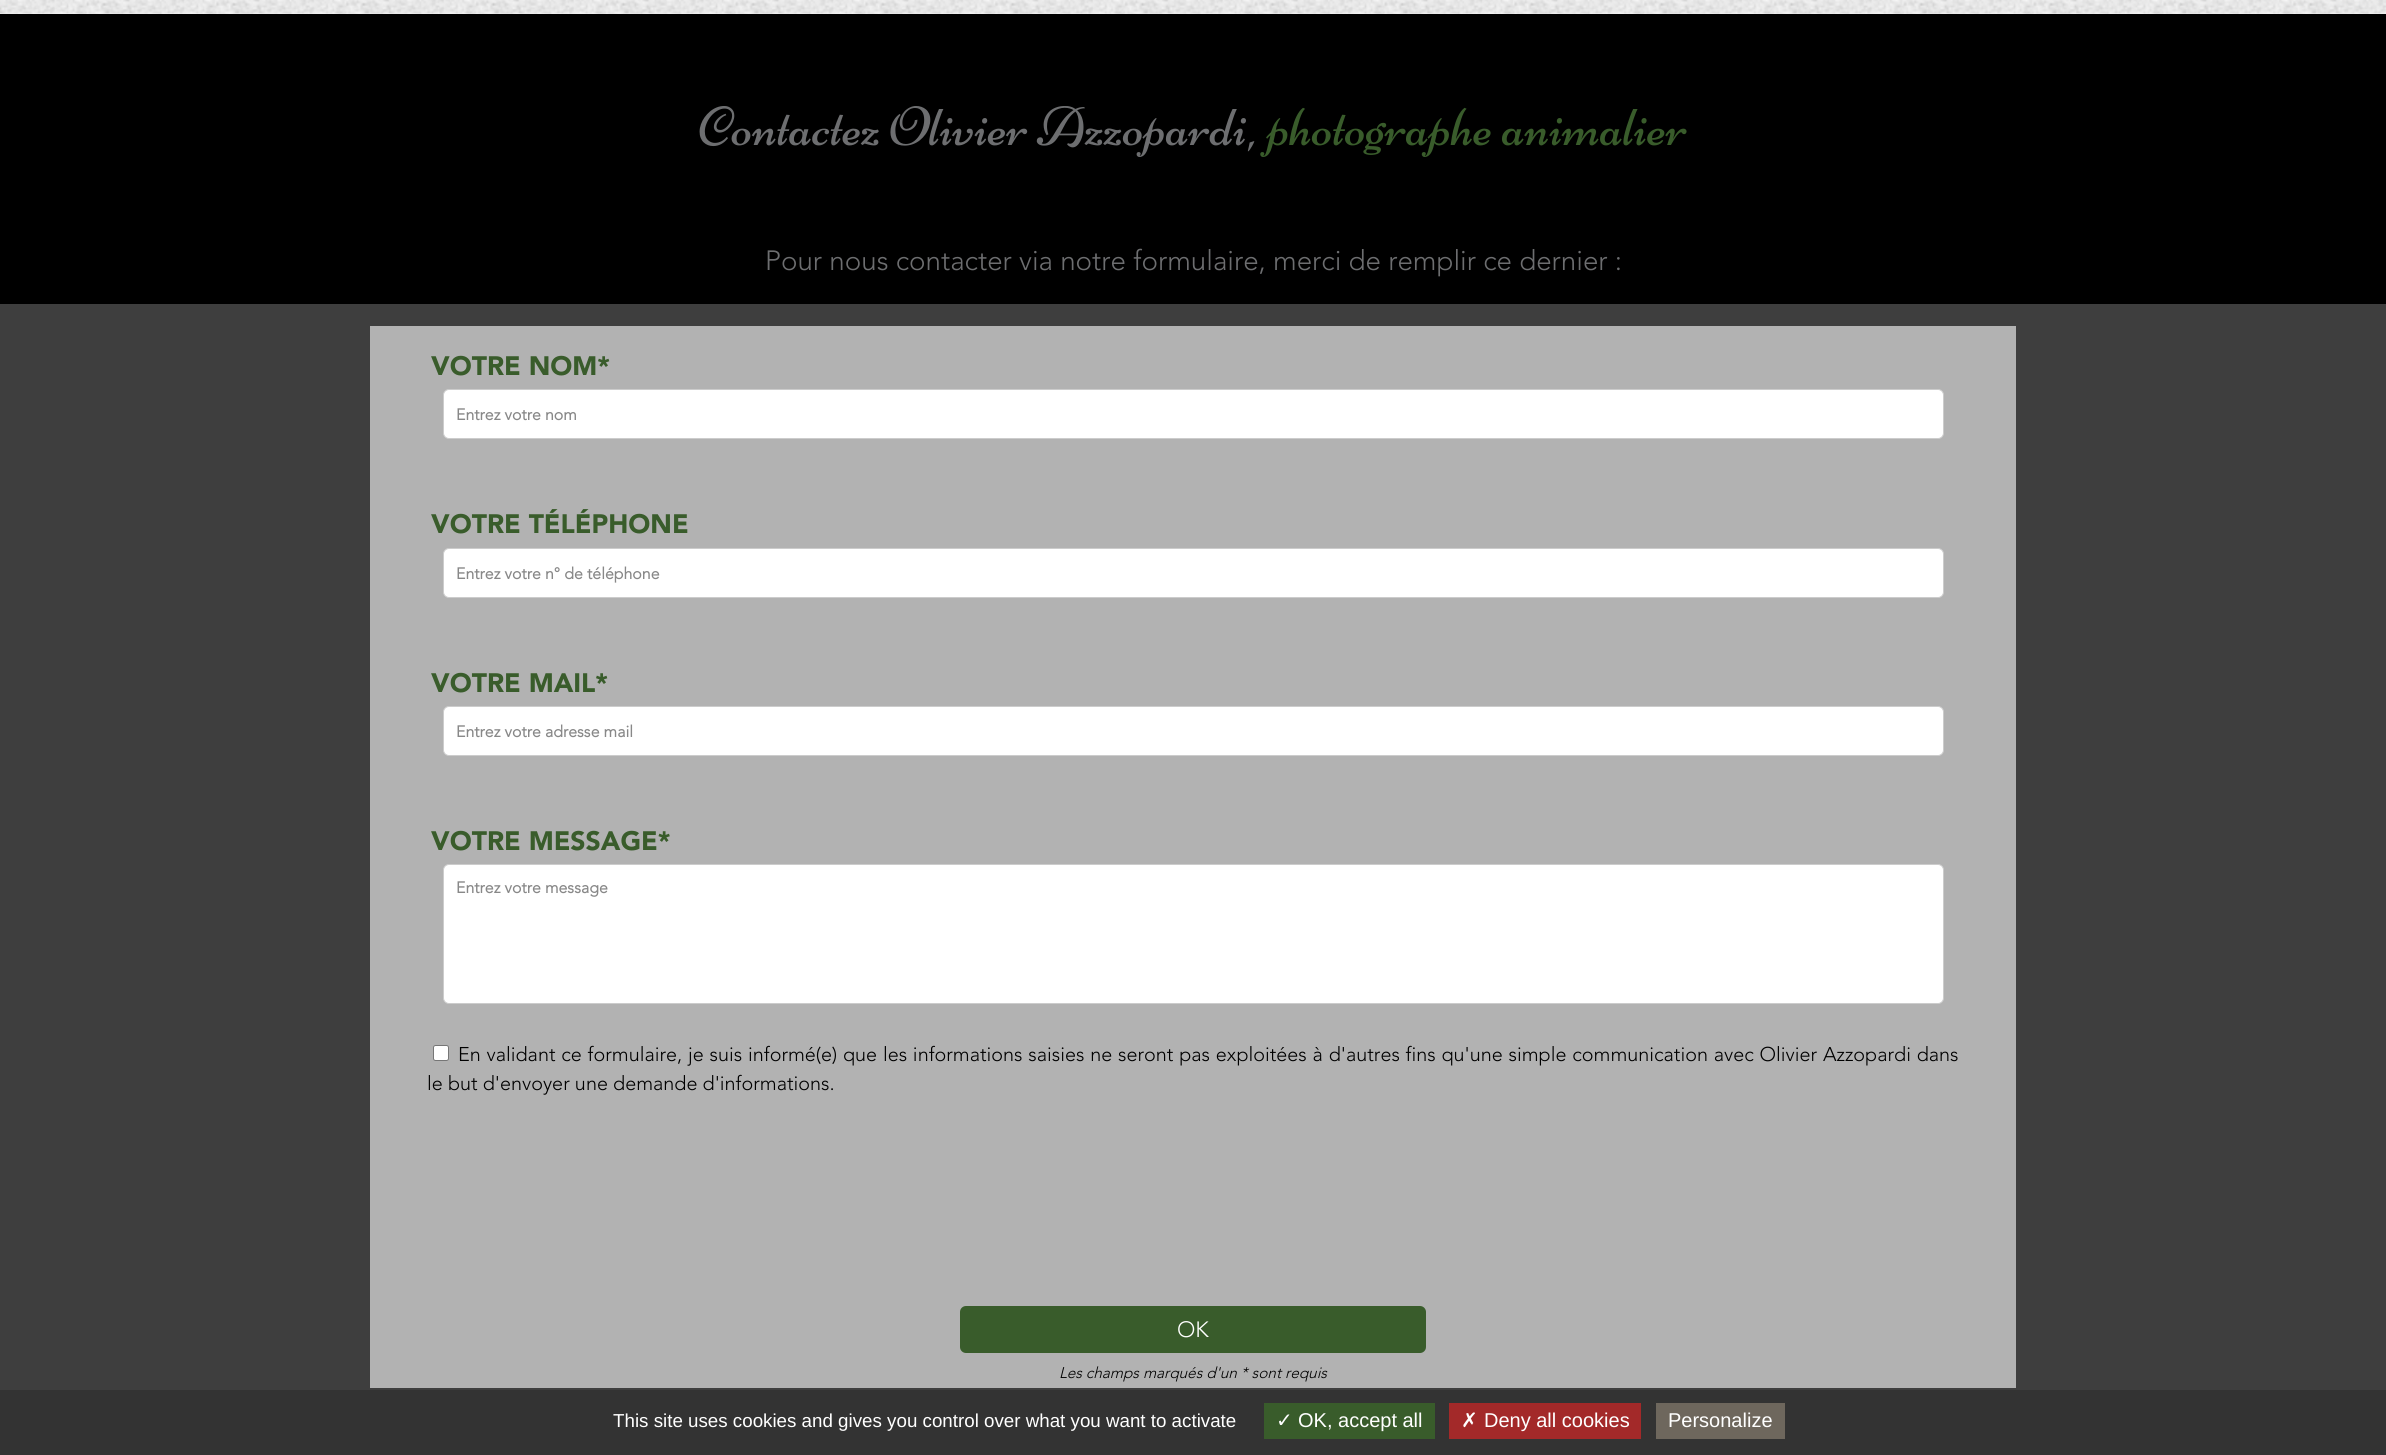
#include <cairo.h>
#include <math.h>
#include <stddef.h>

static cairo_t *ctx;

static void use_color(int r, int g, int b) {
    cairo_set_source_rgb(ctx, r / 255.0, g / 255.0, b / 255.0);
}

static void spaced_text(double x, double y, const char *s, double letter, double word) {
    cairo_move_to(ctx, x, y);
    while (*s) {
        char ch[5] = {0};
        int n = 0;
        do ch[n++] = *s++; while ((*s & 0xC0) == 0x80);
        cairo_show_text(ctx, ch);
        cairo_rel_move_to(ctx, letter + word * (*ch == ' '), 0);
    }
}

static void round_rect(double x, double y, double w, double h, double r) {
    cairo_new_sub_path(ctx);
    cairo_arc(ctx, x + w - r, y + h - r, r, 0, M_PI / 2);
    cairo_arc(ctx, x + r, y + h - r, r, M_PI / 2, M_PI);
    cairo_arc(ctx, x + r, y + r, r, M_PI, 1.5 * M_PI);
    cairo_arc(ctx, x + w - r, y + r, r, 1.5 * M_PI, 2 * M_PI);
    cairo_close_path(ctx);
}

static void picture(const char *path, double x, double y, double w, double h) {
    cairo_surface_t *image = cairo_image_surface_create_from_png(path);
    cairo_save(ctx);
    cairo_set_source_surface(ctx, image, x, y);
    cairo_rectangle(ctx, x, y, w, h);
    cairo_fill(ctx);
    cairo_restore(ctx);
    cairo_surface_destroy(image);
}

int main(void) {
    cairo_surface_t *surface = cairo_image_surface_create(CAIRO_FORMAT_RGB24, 2386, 1455);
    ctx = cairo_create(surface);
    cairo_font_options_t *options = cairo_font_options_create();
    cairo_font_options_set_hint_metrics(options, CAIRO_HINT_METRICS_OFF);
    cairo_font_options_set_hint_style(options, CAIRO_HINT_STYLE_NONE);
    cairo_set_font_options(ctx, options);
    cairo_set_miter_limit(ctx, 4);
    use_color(255, 255, 255);
    cairo_paint(ctx);
    picture("img1.png", 0, 0, 2386, 14);
    use_color(0, 0, 0);
    cairo_rectangle(ctx, 0, 14, 2386, 290);
    cairo_fill(ctx);
    picture("img2.png", 699, 106, 556, 51);
    picture("img3.png", 1260, 107, 427, 50);
    cairo_select_font_face(ctx, "Avenir Light", CAIRO_FONT_SLANT_NORMAL, CAIRO_FONT_WEIGHT_NORMAL);
    cairo_set_font_size(ctx, 27.75);
    use_color(109, 110, 112);
    cairo_move_to(ctx, 765, 270);
    cairo_show_text(ctx, "Pour nous contacter via notre formulaire, merci de remplir ce dernier :");
    use_color(62, 62, 62);
    cairo_rectangle(ctx, 0, 304, 2386, 1086);
    cairo_fill(ctx);
    use_color(178, 178, 178);
    cairo_rectangle(ctx, 370, 326, 1646, 1062);
    cairo_fill(ctx);
    cairo_select_font_face(ctx, "Avenir Black", CAIRO_FONT_SLANT_NORMAL, CAIRO_FONT_WEIGHT_NORMAL);
    cairo_set_font_size(ctx, 26.5);
    use_color(57, 92, 43);
    cairo_move_to(ctx, 431, 375);
    cairo_show_text(ctx, "VOTRE NOM*");
    use_color(255, 255, 255);
    round_rect(443.5, 389.5, 1500, 49, 5.5);
    cairo_fill_preserve(ctx);
    use_color(204, 204, 204);
    cairo_set_line_width(ctx, 1);
    cairo_stroke(ctx);
    cairo_select_font_face(ctx, "Avenir", CAIRO_FONT_SLANT_ITALIC, CAIRO_FONT_WEIGHT_BOLD);
    cairo_set_font_size(ctx, 15.9);
    use_color(136, 136, 136);
    cairo_move_to(ctx, 456, 420);
    cairo_show_text(ctx, "Entrez votre nom");
    cairo_select_font_face(ctx, "Avenir Black", CAIRO_FONT_SLANT_NORMAL, CAIRO_FONT_WEIGHT_NORMAL);
    cairo_set_font_size(ctx, 26.5);
    use_color(57, 92, 43);
    cairo_move_to(ctx, 431, 533);
    cairo_show_text(ctx, "VOTRE TÉLÉPHONE");
    use_color(255, 255, 255);
    round_rect(443.5, 548.5, 1500, 49, 5.5);
    cairo_fill_preserve(ctx);
    use_color(204, 204, 204);
    cairo_stroke(ctx);
    cairo_select_font_face(ctx, "Avenir", CAIRO_FONT_SLANT_ITALIC, CAIRO_FONT_WEIGHT_BOLD);
    cairo_set_font_size(ctx, 15.9);
    use_color(136, 136, 136);
    cairo_move_to(ctx, 456, 579);
    cairo_show_text(ctx, "Entrez votre n° de téléphone");
    cairo_select_font_face(ctx, "Avenir Black", CAIRO_FONT_SLANT_NORMAL, CAIRO_FONT_WEIGHT_NORMAL);
    cairo_set_font_size(ctx, 26.5);
    use_color(57, 92, 43);
    cairo_move_to(ctx, 431, 692);
    cairo_show_text(ctx, "VOTRE MAIL*");
    use_color(255, 255, 255);
    round_rect(443.5, 706.5, 1500, 49, 5.5);
    cairo_fill_preserve(ctx);
    use_color(204, 204, 204);
    cairo_stroke(ctx);
    cairo_select_font_face(ctx, "Avenir", CAIRO_FONT_SLANT_ITALIC, CAIRO_FONT_WEIGHT_BOLD);
    cairo_set_font_size(ctx, 15.9);
    use_color(136, 136, 136);
    cairo_move_to(ctx, 456, 737);
    cairo_show_text(ctx, "Entrez votre adresse mail");
    cairo_select_font_face(ctx, "Avenir Black", CAIRO_FONT_SLANT_NORMAL, CAIRO_FONT_WEIGHT_NORMAL);
    cairo_set_font_size(ctx, 26.5);
    use_color(57, 92, 43);
    cairo_move_to(ctx, 431, 850);
    cairo_show_text(ctx, "VOTRE MESSAGE*");
    use_color(255, 255, 255);
    round_rect(443.5, 864.5, 1500, 139, 5.5);
    cairo_fill_preserve(ctx);
    use_color(204, 204, 204);
    cairo_stroke(ctx);
    cairo_select_font_face(ctx, "Avenir", CAIRO_FONT_SLANT_ITALIC, CAIRO_FONT_WEIGHT_BOLD);
    cairo_set_font_size(ctx, 15.9);
    use_color(136, 136, 136);
    cairo_move_to(ctx, 456, 893);
    cairo_show_text(ctx, "Entrez votre message");
    use_color(255, 255, 255);
    round_rect(433.5, 1045.5, 15, 15, 2);
    cairo_fill_preserve(ctx);
    use_color(118, 118, 118);
    cairo_stroke(ctx);
    cairo_select_font_face(ctx, "Avenir Light", CAIRO_FONT_SLANT_NORMAL, CAIRO_FONT_WEIGHT_NORMAL);
    cairo_set_font_size(ctx, 19.8);
    use_color(0, 0, 0);
    spaced_text(458, 1061, "En validant ce formulaire, je suis informé(e) que les informations saisies ne seront pas exploitées à d'autres fins qu'une simple communication avec Olivier Azzopardi dans", 0, 0.65);
    cairo_move_to(ctx, 427, 1090);
    cairo_show_text(ctx, "le but d'envoyer une demande d'informations.");
    use_color(57, 92, 43);
    round_rect(960, 1306, 466, 47, 6);
    cairo_fill(ctx);
    cairo_set_font_size(ctx, 22);
    use_color(255, 255, 255);
    cairo_move_to(ctx, 1177, 1337);
    cairo_show_text(ctx, "OK");
    cairo_select_font_face(ctx, "Avenir Light", CAIRO_FONT_SLANT_ITALIC, CAIRO_FONT_WEIGHT_NORMAL);
    cairo_set_font_size(ctx, 15.4);
    use_color(0, 0, 0);
    cairo_move_to(ctx, 1059, 1378);
    cairo_show_text(ctx, "Les champs marqués d'un * sont requis");
    use_color(51, 51, 51);
    cairo_rectangle(ctx, 0, 1390, 2386, 65);
    cairo_fill(ctx);
    cairo_select_font_face(ctx, "Liberation Sans", CAIRO_FONT_SLANT_NORMAL, CAIRO_FONT_WEIGHT_NORMAL);
    cairo_set_font_size(ctx, 18.75);
    use_color(255, 255, 255);
    cairo_move_to(ctx, 613, 1427);
    cairo_show_text(ctx, "This site uses cookies and gives you control over what you want to activate");
    use_color(57, 92, 43);
    cairo_rectangle(ctx, 1264, 1403, 171, 36);
    cairo_fill(ctx);
    cairo_select_font_face(ctx, "DejaVu Sans", CAIRO_FONT_SLANT_NORMAL, CAIRO_FONT_WEIGHT_NORMAL);
    cairo_set_font_size(ctx, 20);
    use_color(255, 255, 255);
    cairo_move_to(ctx, 1276, 1427);
    cairo_show_text(ctx, "✓");
    cairo_select_font_face(ctx, "Liberation Sans", CAIRO_FONT_SLANT_NORMAL, CAIRO_FONT_WEIGHT_NORMAL);
    cairo_move_to(ctx, 1298, 1427);
    cairo_show_text(ctx, "OK, accept all");
    use_color(163, 41, 41);
    cairo_rectangle(ctx, 1449, 1403, 192, 36);
    cairo_fill(ctx);
    cairo_select_font_face(ctx, "DejaVu Sans", CAIRO_FONT_SLANT_NORMAL, CAIRO_FONT_WEIGHT_NORMAL);
    use_color(255, 255, 255);
    cairo_move_to(ctx, 1461, 1427);
    cairo_show_text(ctx, "✗");
    cairo_select_font_face(ctx, "Liberation Sans", CAIRO_FONT_SLANT_NORMAL, CAIRO_FONT_WEIGHT_NORMAL);
    cairo_move_to(ctx, 1484, 1427);
    cairo_show_text(ctx, "Deny all cookies");
    use_color(110, 103, 93);
    cairo_rectangle(ctx, 1656, 1403, 129, 36);
    cairo_fill(ctx);
    use_color(255, 255, 255);
    cairo_move_to(ctx, 1668, 1427);
    cairo_show_text(ctx, "Personalize");
    cairo_surface_write_to_png(surface, "result.png");
    cairo_font_options_destroy(options);
    cairo_destroy(ctx);
    cairo_surface_destroy(surface);
    return 0;
}
